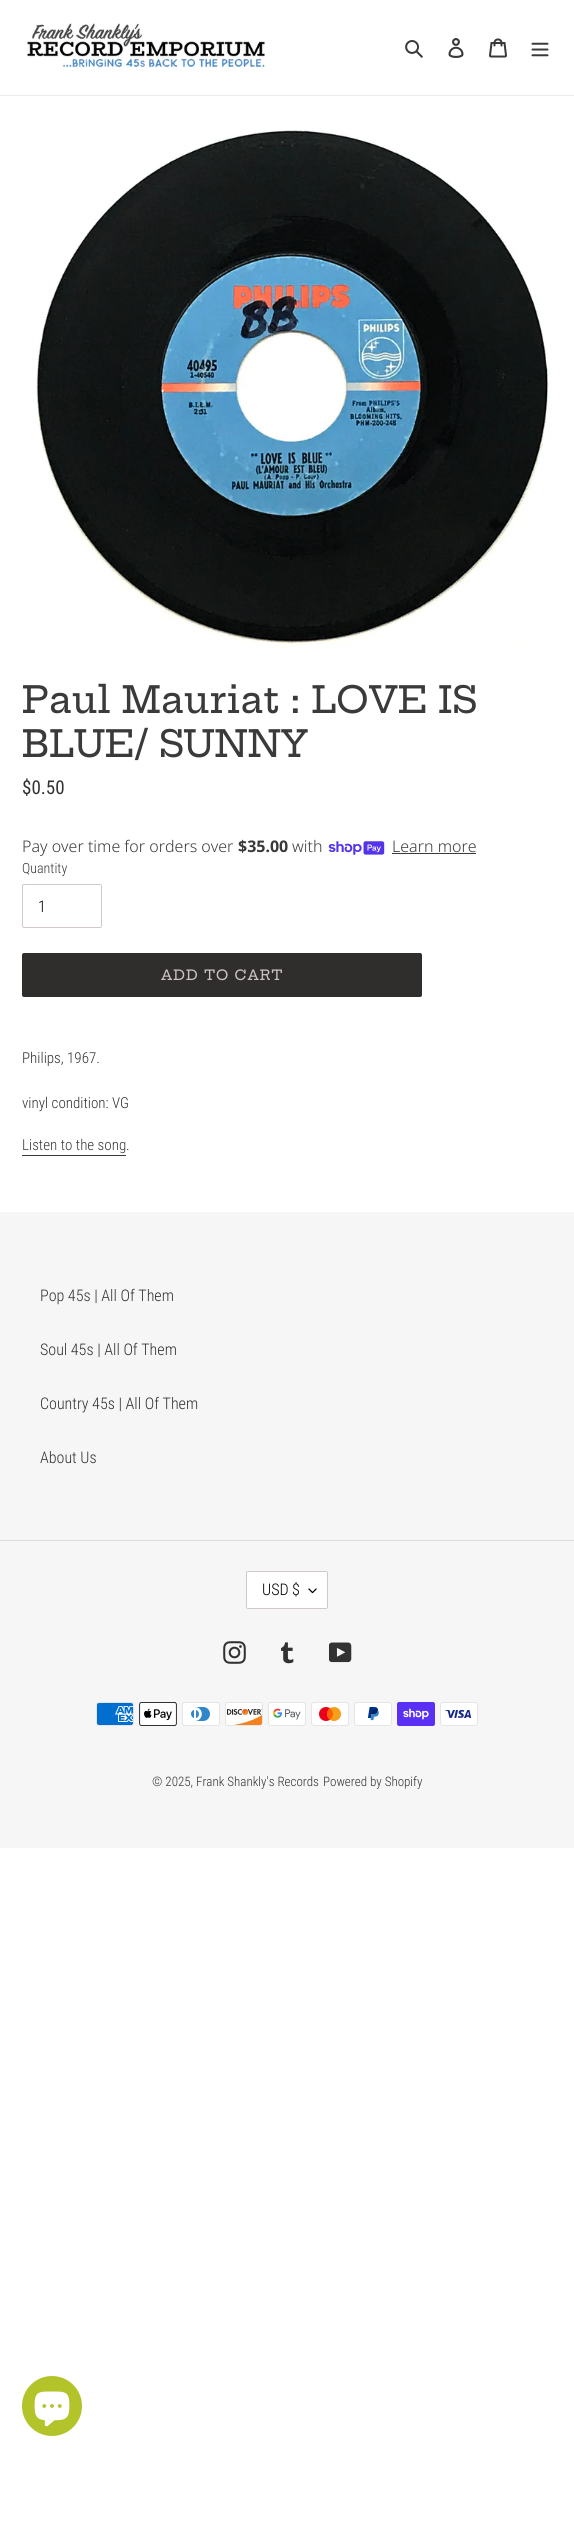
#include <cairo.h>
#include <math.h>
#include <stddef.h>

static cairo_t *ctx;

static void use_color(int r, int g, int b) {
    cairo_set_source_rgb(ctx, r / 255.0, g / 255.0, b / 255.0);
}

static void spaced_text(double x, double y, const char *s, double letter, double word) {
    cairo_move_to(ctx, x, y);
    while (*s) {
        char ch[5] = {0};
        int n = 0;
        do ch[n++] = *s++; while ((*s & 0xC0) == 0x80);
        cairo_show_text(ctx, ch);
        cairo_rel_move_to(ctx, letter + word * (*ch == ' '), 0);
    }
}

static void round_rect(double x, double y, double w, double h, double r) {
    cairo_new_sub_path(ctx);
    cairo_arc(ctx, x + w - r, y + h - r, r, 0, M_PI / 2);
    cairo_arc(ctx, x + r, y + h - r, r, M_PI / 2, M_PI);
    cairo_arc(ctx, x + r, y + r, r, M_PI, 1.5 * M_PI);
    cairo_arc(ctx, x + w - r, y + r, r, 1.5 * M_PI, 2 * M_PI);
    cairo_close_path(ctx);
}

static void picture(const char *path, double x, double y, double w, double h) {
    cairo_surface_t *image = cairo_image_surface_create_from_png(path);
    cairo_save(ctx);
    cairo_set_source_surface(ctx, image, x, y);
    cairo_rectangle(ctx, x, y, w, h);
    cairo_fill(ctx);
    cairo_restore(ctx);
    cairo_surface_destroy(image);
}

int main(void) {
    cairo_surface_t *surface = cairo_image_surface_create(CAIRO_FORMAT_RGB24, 574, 2521);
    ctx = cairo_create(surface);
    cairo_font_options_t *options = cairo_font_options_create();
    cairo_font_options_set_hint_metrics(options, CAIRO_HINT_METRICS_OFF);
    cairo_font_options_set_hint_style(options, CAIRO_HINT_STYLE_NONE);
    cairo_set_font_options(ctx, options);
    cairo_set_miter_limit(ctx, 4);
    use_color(255, 255, 255);
    cairo_paint(ctx);
    use_color(235, 235, 235);
    cairo_rectangle(ctx, 0, 95, 574, 1);
    cairo_fill(ctx);
    picture("img1.png", 27, 23, 239, 48);
    picture("img2.png", 405, 40, 18, 18);
    picture("img3.png", 448, 38, 16, 20);
    picture("img4.png", 489, 38, 18, 20);
    picture("img5.png", 531, 42, 18, 15);
    picture("img6.png", 35, 130, 517, 518);
    cairo_select_font_face(ctx, "Hepta Slab Medium", CAIRO_FONT_SLANT_NORMAL, CAIRO_FONT_WEIGHT_NORMAL);
    cairo_set_font_size(ctx, 37);
    use_color(58, 58, 58);
    cairo_move_to(ctx, 22, 713);
    cairo_show_text(ctx, "Paul Mauriat : LOVE IS");
    cairo_move_to(ctx, 22, 757);
    cairo_show_text(ctx, "BLUE/ SUNNY");
    cairo_select_font_face(ctx, "Roboto Condensed", CAIRO_FONT_SLANT_NORMAL, CAIRO_FONT_WEIGHT_NORMAL);
    cairo_set_font_size(ctx, 19);
    use_color(51, 50, 50);
    cairo_move_to(ctx, 22, 794);
    cairo_show_text(ctx, "$0.50");
    cairo_select_font_face(ctx, "Noto Sans Light", CAIRO_FONT_SLANT_NORMAL, CAIRO_FONT_WEIGHT_NORMAL);
    cairo_set_font_size(ctx, 16);
    use_color(58, 58, 58);
    cairo_move_to(ctx, 22, 852);
    cairo_show_text(ctx, "Pay over time for orders over");
    cairo_select_font_face(ctx, "Noto Sans", CAIRO_FONT_SLANT_NORMAL, CAIRO_FONT_WEIGHT_BOLD);
    cairo_move_to(ctx, 238, 852);
    cairo_show_text(ctx, "$35.00");
    cairo_select_font_face(ctx, "Noto Sans Light", CAIRO_FONT_SLANT_NORMAL, CAIRO_FONT_WEIGHT_NORMAL);
    cairo_move_to(ctx, 292, 852);
    cairo_show_text(ctx, "with");
    picture("img7.png", 328, 841, 57, 14);
    cairo_move_to(ctx, 392, 852);
    cairo_show_text(ctx, "Learn more");
    cairo_rectangle(ctx, 392, 853, 84, 1);
    cairo_fill(ctx);
    cairo_select_font_face(ctx, "Roboto Condensed Light", CAIRO_FONT_SLANT_NORMAL, CAIRO_FONT_WEIGHT_NORMAL);
    cairo_set_font_size(ctx, 14);
    cairo_move_to(ctx, 22, 873);
    cairo_show_text(ctx, "Quantity");
    round_rect(22.5, 884.5, 79, 43, 1.5);
    use_color(209, 200, 200);
    cairo_set_line_width(ctx, 1);
    cairo_stroke(ctx);
    cairo_set_font_size(ctx, 16);
    use_color(0, 0, 0);
    cairo_move_to(ctx, 38, 912);
    cairo_show_text(ctx, "1");
    use_color(48, 45, 45);
    round_rect(22, 953, 400, 44, 2);
    cairo_fill(ctx);
    cairo_select_font_face(ctx, "Hepta Slab Medium", CAIRO_FONT_SLANT_NORMAL, CAIRO_FONT_WEIGHT_NORMAL);
    cairo_set_font_size(ctx, 14);
    use_color(204, 195, 195);
    spaced_text(161, 980, "ADD TO CART", 1.1, 0);
    cairo_select_font_face(ctx, "Roboto Condensed Light", CAIRO_FONT_SLANT_NORMAL, CAIRO_FONT_WEIGHT_NORMAL);
    cairo_set_font_size(ctx, 15);
    use_color(51, 50, 50);
    cairo_move_to(ctx, 22, 1063);
    cairo_show_text(ctx, "Philips, 1967.");
    cairo_move_to(ctx, 22, 1108);
    cairo_show_text(ctx, "vinyl condition: VG");
    use_color(58, 58, 58);
    cairo_move_to(ctx, 22, 1150);
    cairo_show_text(ctx, "Listen to the song");
    cairo_rectangle(ctx, 22, 1155, 104, 1);
    cairo_fill(ctx);
    use_color(51, 50, 50);
    cairo_move_to(ctx, 126, 1150);
    cairo_show_text(ctx, ".");
    use_color(246, 246, 246);
    cairo_rectangle(ctx, 0, 1212, 574, 636);
    cairo_fill(ctx);
    cairo_set_font_size(ctx, 16);
    use_color(51, 50, 50);
    cairo_move_to(ctx, 40, 1301);
    cairo_show_text(ctx, "Pop 45s | All Of Them");
    cairo_move_to(ctx, 40, 1355);
    cairo_show_text(ctx, "Soul 45s | All Of Them");
    cairo_move_to(ctx, 40, 1409);
    cairo_show_text(ctx, "Country 45s | All Of Them");
    cairo_move_to(ctx, 40, 1463);
    cairo_show_text(ctx, "About Us");
    use_color(221, 221, 221);
    cairo_rectangle(ctx, 0, 1540, 574, 1);
    cairo_fill(ctx);
    use_color(255, 255, 255);
    round_rect(246, 1571, 82, 38, 2);
    cairo_fill(ctx);
    picture("img8.png", 308, 1588, 9, 6);
    round_rect(246.5, 1571.5, 81, 37, 1.5);
    use_color(209, 200, 200);
    cairo_stroke(ctx);
    use_color(0, 0, 0);
    cairo_move_to(ctx, 262, 1595);
    cairo_show_text(ctx, "USD $");
    picture("img9.png", 223, 1641, 23, 23);
    picture("img10.png", 281, 1642, 13, 22);
    picture("img11.png", 329, 1642, 23, 21);
    picture("img12.png", 96, 1702, 38, 24);
    picture("img13.png", 139, 1702, 38, 24);
    picture("img14.png", 182, 1702, 38, 24);
    picture("img15.png", 225, 1702, 38, 24);
    picture("img16.png", 268, 1702, 38, 24);
    picture("img17.png", 311, 1702, 38, 24);
    picture("img18.png", 354, 1702, 38, 24);
    picture("img19.png", 397, 1702, 38, 24);
    picture("img20.png", 440, 1702, 38, 24);
    cairo_set_font_size(ctx, 13);
    use_color(51, 50, 50);
    cairo_move_to(ctx, 152, 1786);
    cairo_show_text(ctx, "© 2025, Frank Shankly's Records");
    cairo_move_to(ctx, 323, 1786);
    cairo_show_text(ctx, "Powered by Shopify");
    use_color(179, 196, 43);
    cairo_new_path(ctx);
    cairo_arc(ctx, 52, 2406, 30, 0, 2 * M_PI);
    cairo_fill(ctx);
    picture("img21.png", 34, 2391, 36, 36);
    cairo_surface_write_to_png(surface, "result.png");
    cairo_font_options_destroy(options);
    cairo_destroy(ctx);
    cairo_surface_destroy(surface);
    return 0;
}
